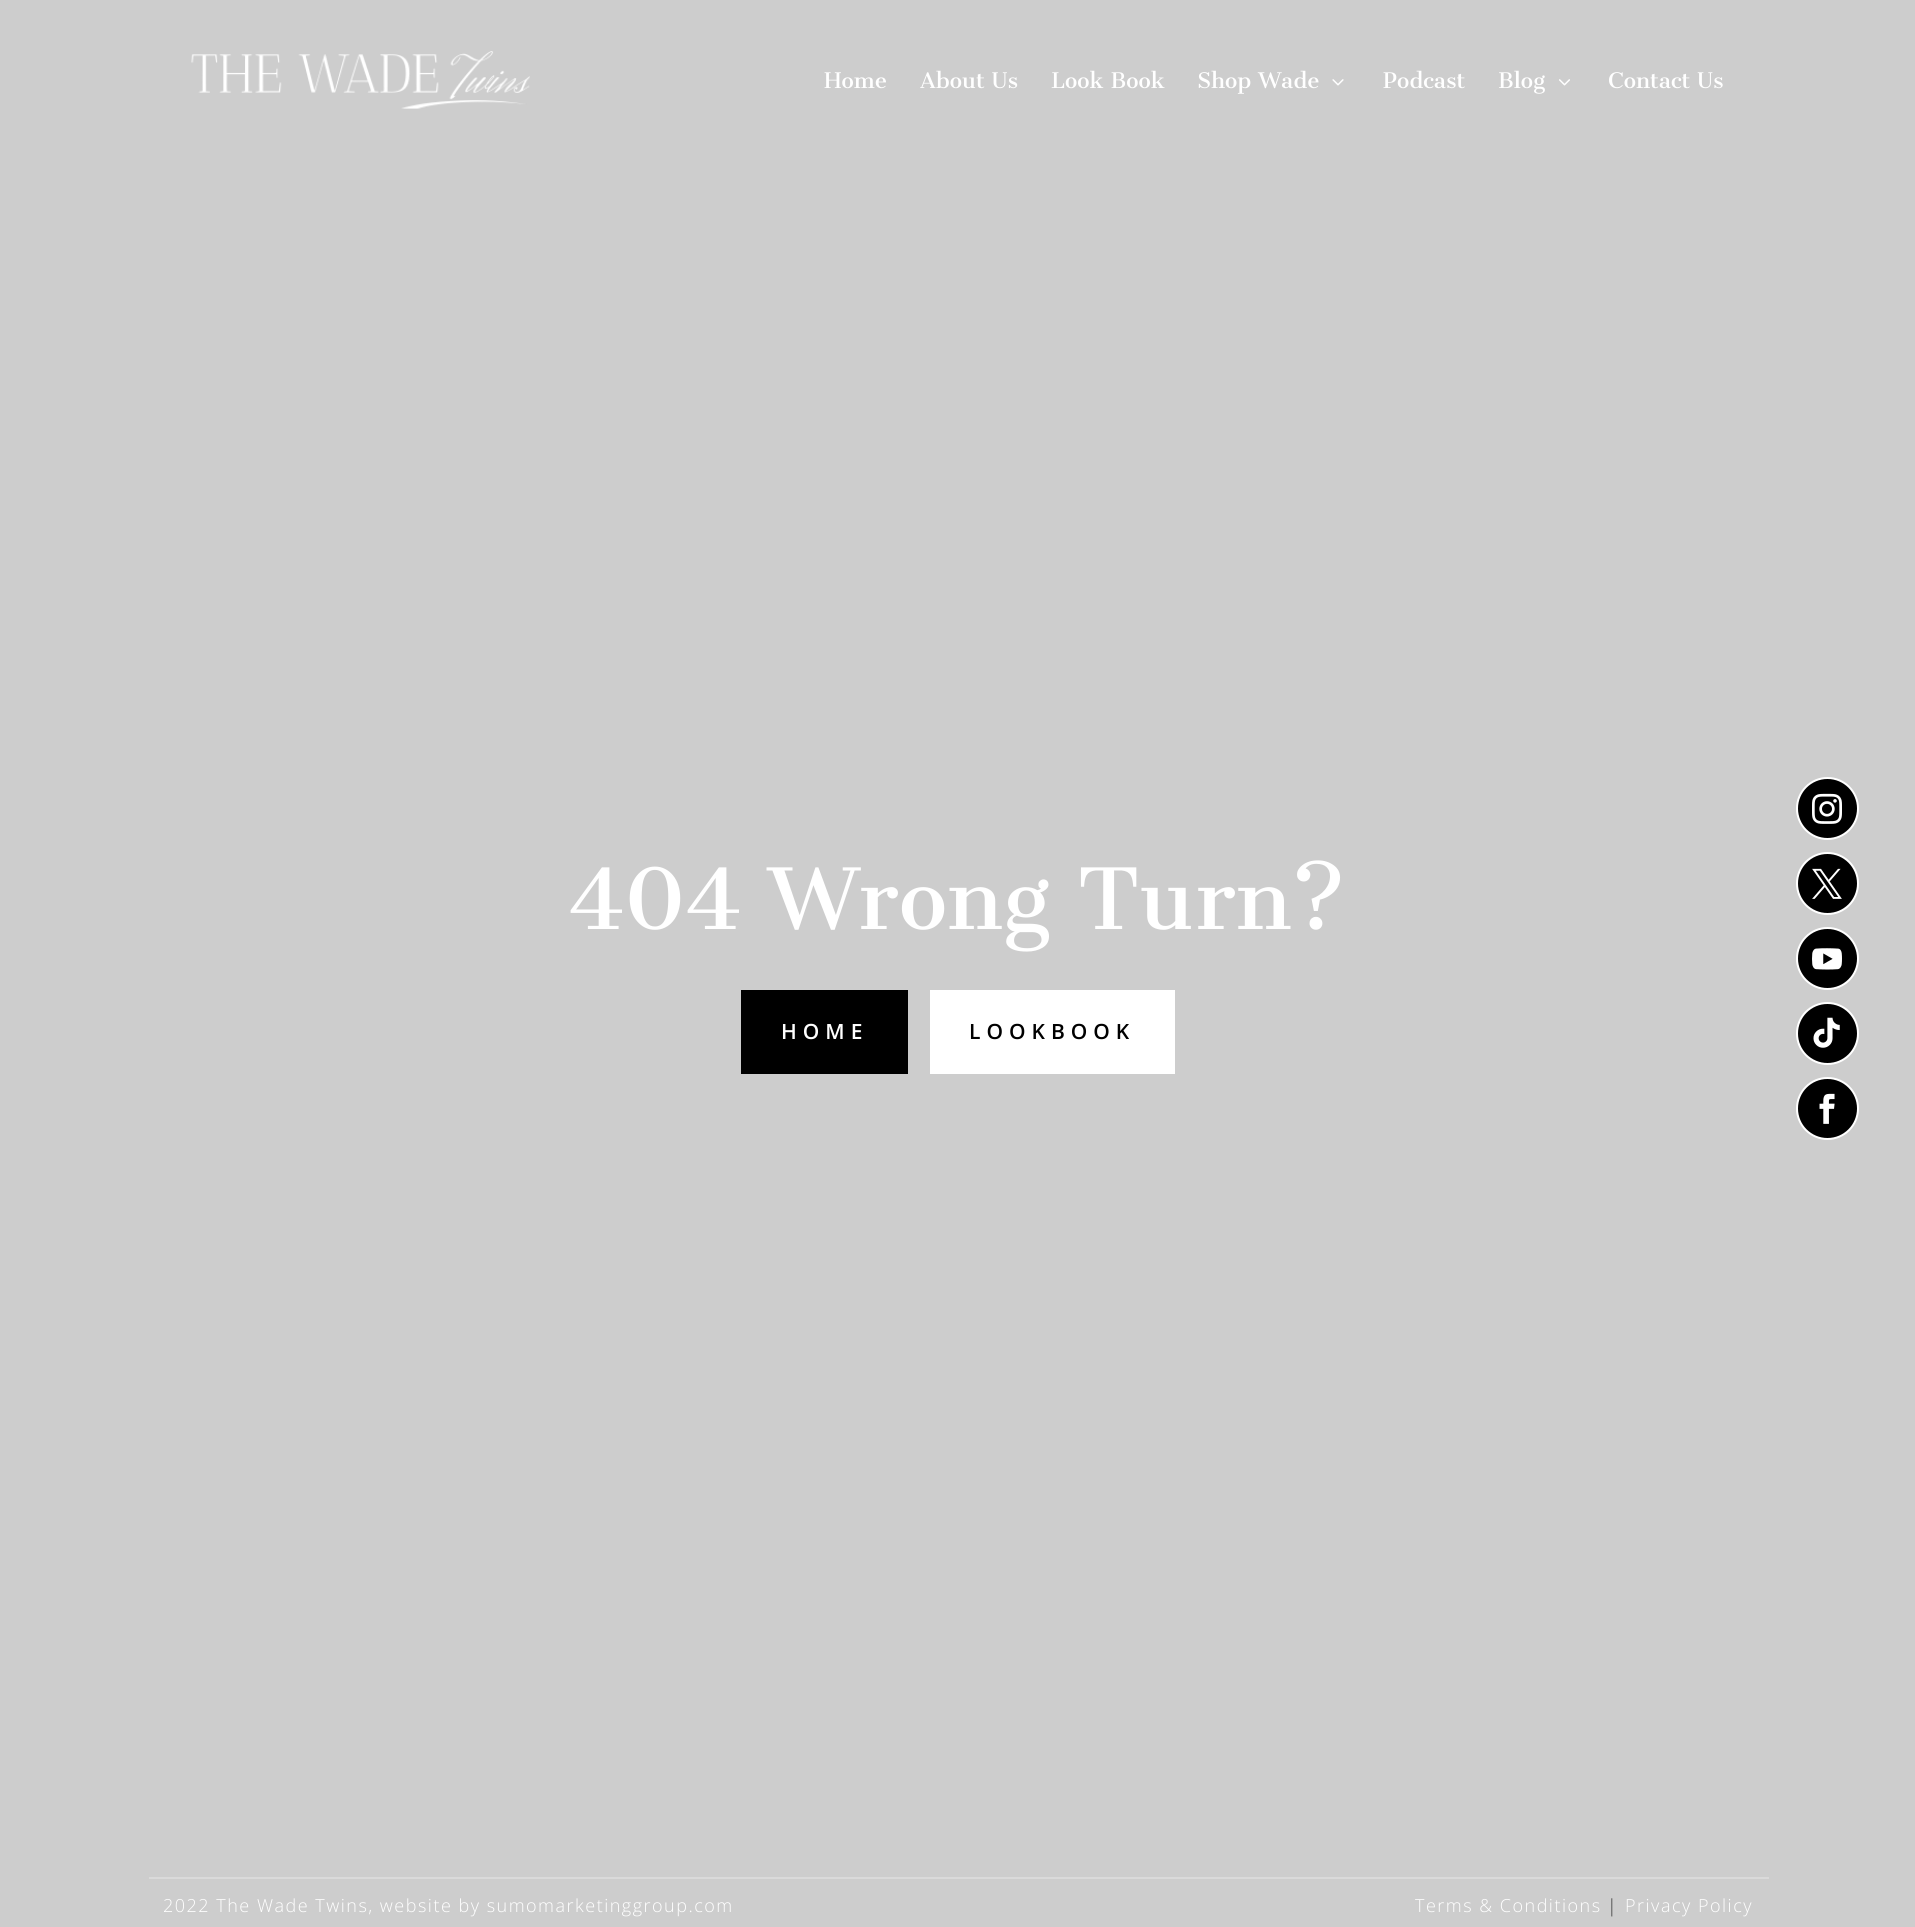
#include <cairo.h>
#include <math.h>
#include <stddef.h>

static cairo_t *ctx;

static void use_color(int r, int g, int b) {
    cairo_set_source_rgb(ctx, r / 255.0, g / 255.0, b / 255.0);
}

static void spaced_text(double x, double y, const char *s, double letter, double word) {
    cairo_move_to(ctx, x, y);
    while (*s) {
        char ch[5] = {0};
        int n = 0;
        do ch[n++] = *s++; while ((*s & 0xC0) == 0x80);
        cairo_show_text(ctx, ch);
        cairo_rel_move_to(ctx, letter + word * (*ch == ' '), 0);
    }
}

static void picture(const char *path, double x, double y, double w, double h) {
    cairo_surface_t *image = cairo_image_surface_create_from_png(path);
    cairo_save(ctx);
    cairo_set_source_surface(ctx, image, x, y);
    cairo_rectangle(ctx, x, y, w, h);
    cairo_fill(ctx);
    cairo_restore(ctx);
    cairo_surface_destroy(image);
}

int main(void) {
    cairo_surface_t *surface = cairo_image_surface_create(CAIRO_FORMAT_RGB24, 1915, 1927);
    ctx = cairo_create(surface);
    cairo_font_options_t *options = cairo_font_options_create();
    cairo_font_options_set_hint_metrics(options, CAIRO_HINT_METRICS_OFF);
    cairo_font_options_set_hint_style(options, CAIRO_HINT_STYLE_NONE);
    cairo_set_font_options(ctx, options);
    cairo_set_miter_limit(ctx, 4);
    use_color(205, 205, 205);
    cairo_paint(ctx);
    picture("img1.png", 191, 51, 339, 58);
    cairo_select_font_face(ctx, "Cantata One", CAIRO_FONT_SLANT_NORMAL, CAIRO_FONT_WEIGHT_NORMAL);
    cairo_set_font_size(ctx, 21);
    use_color(255, 255, 255);
    cairo_move_to(ctx, 824, 88);
    cairo_show_text(ctx, "Home");
    cairo_move_to(ctx, 920, 88);
    cairo_show_text(ctx, "About Us");
    cairo_move_to(ctx, 1051, 88);
    cairo_show_text(ctx, "Look Book");
    cairo_move_to(ctx, 1197, 88);
    cairo_show_text(ctx, "Shop Wade");
    picture("img2.png", 1332, 79, 12, 7);
    cairo_move_to(ctx, 1383, 88);
    cairo_show_text(ctx, "Podcast");
    cairo_move_to(ctx, 1498, 88);
    cairo_show_text(ctx, "Blog");
    picture("img3.png", 1559, 79, 11, 7);
    cairo_move_to(ctx, 1608, 88);
    cairo_show_text(ctx, "Contact Us");
    use_color(0, 0, 0);
    cairo_new_path(ctx);
    cairo_arc(ctx, 1827.5, 808.5, 30.5, 0, 2 * M_PI);
    cairo_fill_preserve(ctx);
    use_color(255, 255, 255);
    cairo_stroke(ctx);
    picture("img4.png", 1812, 793, 30, 31);
    use_color(0, 0, 0);
    cairo_arc(ctx, 1827.5, 883.5, 30.5, 0, 2 * M_PI);
    cairo_fill_preserve(ctx);
    use_color(255, 255, 255);
    cairo_stroke(ctx);
    picture("img5.png", 1812, 868, 30, 31);
    use_color(0, 0, 0);
    cairo_arc(ctx, 1827.5, 958.5, 30.5, 0, 2 * M_PI);
    cairo_fill_preserve(ctx);
    use_color(255, 255, 255);
    cairo_stroke(ctx);
    picture("img6.png", 1812, 948, 30, 22);
    use_color(0, 0, 0);
    cairo_arc(ctx, 1827.5, 1033.5, 30.5, 0, 2 * M_PI);
    cairo_fill_preserve(ctx);
    use_color(255, 255, 255);
    cairo_stroke(ctx);
    picture("img7.png", 1813, 1017, 27, 31);
    use_color(0, 0, 0);
    cairo_arc(ctx, 1827.5, 1108.5, 30.5, 0, 2 * M_PI);
    cairo_fill_preserve(ctx);
    use_color(255, 255, 255);
    cairo_stroke(ctx);
    picture("img8.png", 1819, 1093, 16, 31);
    cairo_set_font_size(ctx, 82.5);
    cairo_move_to(ctx, 569, 929);
    cairo_show_text(ctx, "404 Wrong Turn?");
    use_color(0, 0, 0);
    cairo_rectangle(ctx, 741, 990, 167, 84);
    cairo_fill(ctx);
    cairo_select_font_face(ctx, "Open Sans SemiBold", CAIRO_FONT_SLANT_NORMAL, CAIRO_FONT_WEIGHT_NORMAL);
    cairo_set_font_size(ctx, 21);
    use_color(255, 255, 255);
    spaced_text(781, 1039, "HOME", 6, 0);
    cairo_rectangle(ctx, 930, 990, 245, 84);
    cairo_fill(ctx);
    use_color(0, 0, 0);
    spaced_text(969, 1039, "LOOKBOOK", 6, 0);
    use_color(218, 218, 218);
    cairo_rectangle(ctx, 149, 1877, 1620, 2);
    cairo_fill(ctx);
    cairo_select_font_face(ctx, "Open Sans Light", CAIRO_FONT_SLANT_NORMAL, CAIRO_FONT_WEIGHT_NORMAL);
    cairo_set_font_size(ctx, 18);
    use_color(255, 255, 255);
    spaced_text(163, 1912, "2022 The Wade Twins, website by sumomarketinggroup.com", 1.5, 0);
    spaced_text(1415, 1912, "Terms & Conditions", 1.5, 0);
    use_color(51, 51, 51);
    spaced_text(1607, 1912, "|", 1.5, 0);
    use_color(255, 255, 255);
    spaced_text(1625, 1912, "Privacy Policy", 1.5, 0);
    cairo_surface_write_to_png(surface, "result.png");
    cairo_font_options_destroy(options);
    cairo_destroy(ctx);
    cairo_surface_destroy(surface);
    return 0;
}
